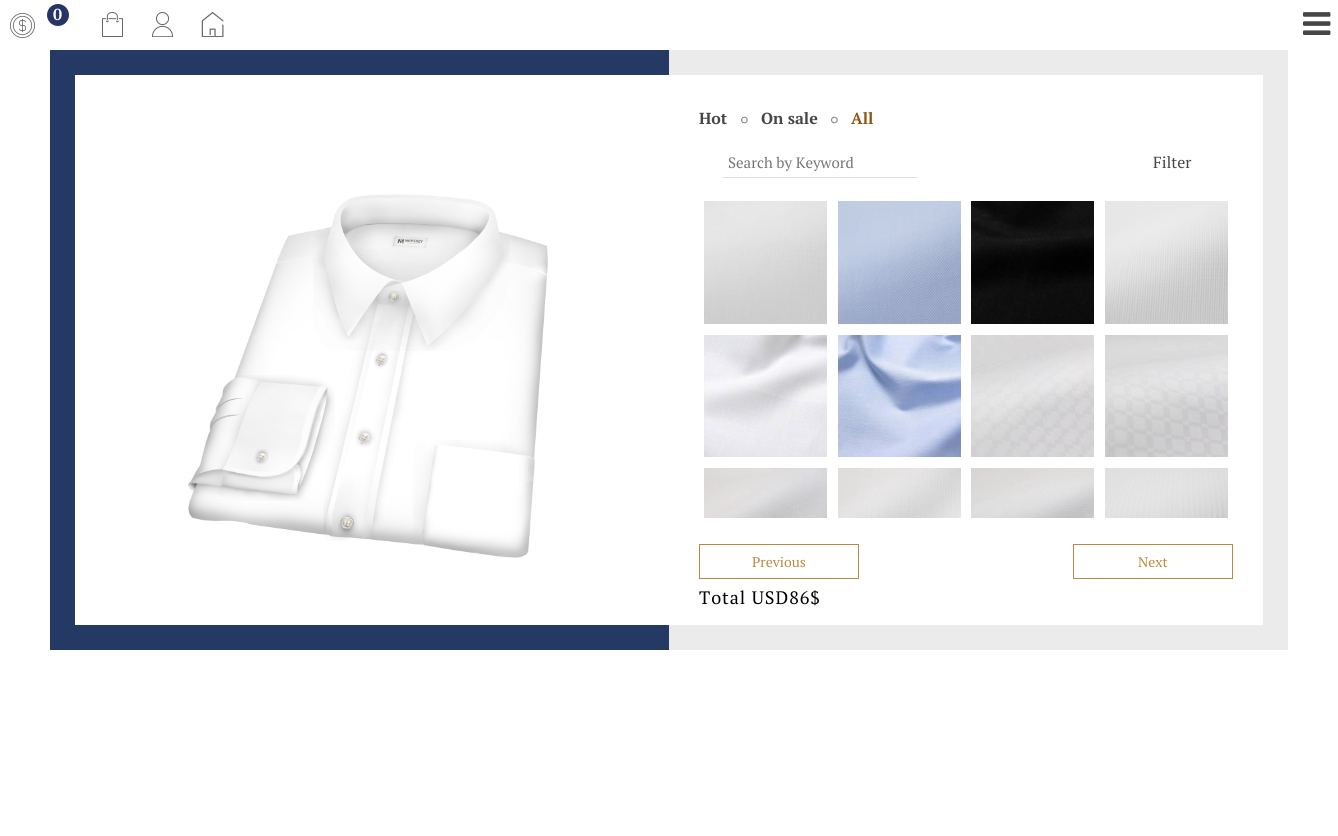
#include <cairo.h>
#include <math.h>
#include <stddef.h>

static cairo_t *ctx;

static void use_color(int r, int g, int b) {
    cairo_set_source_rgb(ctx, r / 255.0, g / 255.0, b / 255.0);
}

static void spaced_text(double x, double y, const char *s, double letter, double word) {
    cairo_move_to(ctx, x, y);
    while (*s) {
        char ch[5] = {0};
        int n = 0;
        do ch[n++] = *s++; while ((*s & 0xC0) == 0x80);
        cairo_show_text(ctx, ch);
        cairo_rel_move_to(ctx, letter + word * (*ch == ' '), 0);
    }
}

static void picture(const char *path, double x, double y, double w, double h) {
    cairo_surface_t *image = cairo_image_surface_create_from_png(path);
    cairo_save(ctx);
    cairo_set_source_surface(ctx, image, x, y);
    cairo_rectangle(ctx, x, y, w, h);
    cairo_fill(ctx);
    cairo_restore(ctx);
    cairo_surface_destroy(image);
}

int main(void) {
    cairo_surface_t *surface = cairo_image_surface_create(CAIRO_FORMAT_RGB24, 1338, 836);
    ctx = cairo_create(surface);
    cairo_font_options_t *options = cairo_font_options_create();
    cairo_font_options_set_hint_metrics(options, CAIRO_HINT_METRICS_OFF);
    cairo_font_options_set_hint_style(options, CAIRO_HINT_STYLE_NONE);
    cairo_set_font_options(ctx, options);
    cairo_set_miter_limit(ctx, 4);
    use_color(255, 255, 255);
    cairo_paint(ctx);
    picture("img1.png", 10, 13, 25, 25);
    use_color(38, 53, 102);
    cairo_arc(ctx, 58, 15, 11, 0, 2 * M_PI);
    cairo_fill(ctx);
    cairo_select_font_face(ctx, "PT Serif", CAIRO_FONT_SLANT_NORMAL, CAIRO_FONT_WEIGHT_BOLD);
    cairo_set_font_size(ctx, 16);
    use_color(255, 255, 255);
    cairo_move_to(ctx, 53, 20);
    cairo_show_text(ctx, "0");
    picture("img2.png", 102, 12, 21, 25);
    picture("img3.png", 152, 12, 21, 25);
    picture("img4.png", 201, 12, 23, 25);
    picture("img5.png", 1303, 12, 28, 23);
    use_color(37, 57, 101);
    cairo_rectangle(ctx, 50, 50, 619, 600);
    cairo_fill(ctx);
    use_color(255, 255, 255);
    cairo_rectangle(ctx, 75, 75, 594, 550);
    cairo_fill(ctx);
    picture("img8.png", 188, 223, 360, 335);
    picture("img7.png", 323, 195, 167, 346);
    picture("img6.png", 313, 194, 197, 157);
    picture("img9.png", 188, 375, 147, 126);
    picture("img10.png", 337, 290, 65, 246);
    picture("img11.png", 413, 440, 122, 118);
    picture("img12.png", 254, 449, 15, 16);
    use_color(235, 235, 235);
    cairo_rectangle(ctx, 669, 50, 619, 600);
    cairo_fill(ctx);
    use_color(255, 255, 255);
    cairo_rectangle(ctx, 669, 75, 594, 550);
    cairo_fill(ctx);
    use_color(70, 70, 70);
    cairo_move_to(ctx, 699, 124);
    cairo_show_text(ctx, "Hot");
    picture("img13.png", 741, 116, 7, 8);
    cairo_move_to(ctx, 761, 124);
    cairo_show_text(ctx, "On sale");
    picture("img13.png", 831, 116, 7, 8);
    use_color(142, 85, 23);
    cairo_move_to(ctx, 851, 124);
    cairo_show_text(ctx, "All");
    use_color(221, 221, 221);
    cairo_rectangle(ctx, 723, 177, 194, 1);
    cairo_fill(ctx);
    cairo_select_font_face(ctx, "PT Serif", CAIRO_FONT_SLANT_NORMAL, CAIRO_FONT_WEIGHT_NORMAL);
    cairo_set_font_size(ctx, 15);
    use_color(117, 117, 117);
    cairo_move_to(ctx, 728, 168);
    cairo_show_text(ctx, "Search by Keyword");
    cairo_set_font_size(ctx, 16);
    use_color(70, 70, 70);
    cairo_move_to(ctx, 1153, 168);
    cairo_show_text(ctx, "Filter");
    picture("img14.png", 704, 201, 123, 123);
    picture("img15.png", 838, 201, 123, 123);
    picture("img16.png", 971, 201, 123, 123);
    picture("img17.png", 1105, 201, 123, 123);
    picture("img18.png", 704, 335, 123, 122);
    picture("img19.png", 838, 335, 123, 122);
    picture("img20.png", 971, 335, 123, 122);
    picture("img21.png", 1105, 335, 123, 122);
    picture("img22.png", 704, 468, 123, 50);
    picture("img23.png", 838, 468, 123, 50);
    picture("img24.png", 971, 468, 123, 50);
    picture("img25.png", 1105, 468, 123, 50);
    cairo_rectangle(ctx, 699.5, 544.5, 159, 34);
    use_color(185, 138, 64);
    cairo_set_line_width(ctx, 1);
    cairo_stroke(ctx);
    cairo_set_font_size(ctx, 14);
    cairo_move_to(ctx, 752, 567);
    cairo_show_text(ctx, "Previous");
    cairo_rectangle(ctx, 1073.5, 544.5, 159, 34);
    cairo_stroke(ctx);
    cairo_move_to(ctx, 1138, 567);
    cairo_show_text(ctx, "Next");
    cairo_set_font_size(ctx, 18);
    use_color(0, 0, 0);
    spaced_text(699, 604, "Total USD86$", 1, 0);
    cairo_surface_write_to_png(surface, "result.png");
    cairo_font_options_destroy(options);
    cairo_destroy(ctx);
    cairo_surface_destroy(surface);
    return 0;
}
